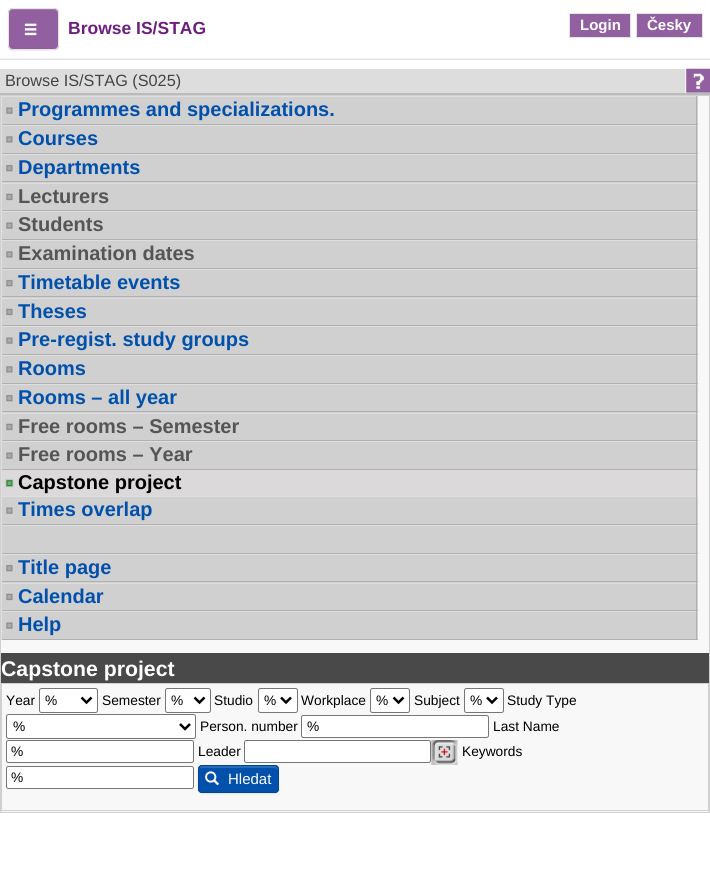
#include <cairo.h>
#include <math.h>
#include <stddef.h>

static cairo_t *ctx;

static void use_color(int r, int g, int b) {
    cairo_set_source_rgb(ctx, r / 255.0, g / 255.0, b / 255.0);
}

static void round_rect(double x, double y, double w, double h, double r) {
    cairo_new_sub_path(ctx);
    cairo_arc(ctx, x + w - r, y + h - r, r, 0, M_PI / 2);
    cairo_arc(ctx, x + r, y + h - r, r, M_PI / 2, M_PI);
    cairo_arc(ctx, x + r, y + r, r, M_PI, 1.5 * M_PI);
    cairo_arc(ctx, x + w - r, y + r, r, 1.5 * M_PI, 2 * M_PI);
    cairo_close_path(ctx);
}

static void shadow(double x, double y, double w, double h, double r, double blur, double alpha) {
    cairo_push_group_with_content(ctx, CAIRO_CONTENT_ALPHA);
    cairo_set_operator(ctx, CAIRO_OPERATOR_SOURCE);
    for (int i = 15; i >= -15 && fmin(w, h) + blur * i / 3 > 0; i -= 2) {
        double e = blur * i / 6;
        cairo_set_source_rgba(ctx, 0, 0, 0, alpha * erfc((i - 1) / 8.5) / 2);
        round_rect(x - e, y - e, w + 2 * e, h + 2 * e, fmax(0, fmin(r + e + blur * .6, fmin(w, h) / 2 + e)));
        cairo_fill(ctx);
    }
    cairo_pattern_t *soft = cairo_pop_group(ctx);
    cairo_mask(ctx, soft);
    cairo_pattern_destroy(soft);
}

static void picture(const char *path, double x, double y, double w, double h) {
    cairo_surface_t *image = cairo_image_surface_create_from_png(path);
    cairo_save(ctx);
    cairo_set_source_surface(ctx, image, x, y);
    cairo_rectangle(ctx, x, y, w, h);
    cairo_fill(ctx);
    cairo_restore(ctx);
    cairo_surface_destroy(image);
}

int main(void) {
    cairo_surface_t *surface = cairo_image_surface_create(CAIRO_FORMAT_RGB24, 710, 882);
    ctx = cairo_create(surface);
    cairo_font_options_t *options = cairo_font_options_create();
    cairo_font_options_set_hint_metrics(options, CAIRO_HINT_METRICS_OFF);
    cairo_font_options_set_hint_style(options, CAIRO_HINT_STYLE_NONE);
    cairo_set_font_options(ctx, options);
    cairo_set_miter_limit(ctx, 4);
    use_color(255, 255, 255);
    cairo_paint(ctx);
    use_color(0, 0, 0);
    shadow(8, 9, 51, 42, 5, 0.5, 0.07);
    use_color(146, 96, 160);
    round_rect(8, 8, 51, 42, 5);
    cairo_fill(ctx);
    use_color(162, 120, 174);
    cairo_new_path(ctx);
    cairo_move_to(ctx, 12, 10);
    cairo_line_to(ctx, 54, 10);
    cairo_curve_to(ctx, 56, 10, 58, 12, 58, 14);
    cairo_curve_to(ctx, 58, 8, 52, 9, 47, 9);
    cairo_line_to(ctx, 20, 9);
    cairo_curve_to(ctx, 15, 9, 9, 8, 9, 14);
    cairo_curve_to(ctx, 9, 12, 10, 10, 12, 10);
    cairo_close_path(ctx);
    cairo_fill(ctx);
    round_rect(8.5, 8.5, 50, 41, 4.5);
    use_color(230, 229, 229);
    cairo_set_line_width(ctx, 1);
    cairo_stroke(ctx);
    picture("img1.png", 24, 23, 13, 13);
    cairo_select_font_face(ctx, "Liberation Sans", CAIRO_FONT_SLANT_NORMAL, CAIRO_FONT_WEIGHT_BOLD);
    cairo_set_font_size(ctx, 17.5);
    use_color(109, 31, 128);
    cairo_move_to(ctx, 68, 34);
    cairo_show_text(ctx, "Browse IS/STAG");
    use_color(146, 96, 160);
    cairo_rectangle(ctx, 569.5, 13.5, 61, 24);
    cairo_fill_preserve(ctx);
    use_color(230, 229, 229);
    cairo_stroke(ctx);
    cairo_set_font_size(ctx, 15);
    use_color(255, 255, 255);
    cairo_move_to(ctx, 580, 30);
    cairo_show_text(ctx, "Login");
    use_color(146, 96, 160);
    cairo_rectangle(ctx, 636.5, 13.5, 66, 24);
    cairo_fill_preserve(ctx);
    use_color(230, 229, 229);
    cairo_stroke(ctx);
    use_color(255, 255, 255);
    cairo_move_to(ctx, 647, 30);
    cairo_show_text(ctx, "Česky");
    use_color(240, 240, 245);
    cairo_rectangle(ctx, 0, 58, 710, 1);
    cairo_fill(ctx);
    use_color(230, 229, 229);
    cairo_rectangle(ctx, 0, 59, 710, 1);
    cairo_fill(ctx);
    use_color(221, 221, 221);
    cairo_rectangle(ctx, 0, 69, 710, 24);
    cairo_fill(ctx);
    use_color(187, 187, 187);
    cairo_rectangle(ctx, 0, 93, 710, 2);
    cairo_fill(ctx);
    cairo_select_font_face(ctx, "Liberation Sans", CAIRO_FONT_SLANT_NORMAL, CAIRO_FONT_WEIGHT_NORMAL);
    cairo_set_font_size(ctx, 16.25);
    use_color(68, 68, 68);
    cairo_move_to(ctx, 5, 86);
    cairo_show_text(ctx, "Browse IS/STAG (S025)");
    use_color(245, 245, 245);
    cairo_rectangle(ctx, 685, 69, 1, 24);
    cairo_fill(ctx);
    picture("img2.png", 686, 68, 24, 25);
    use_color(248, 248, 248);
    cairo_rectangle(ctx, 0.5, 95.5, 709, 717);
    cairo_fill_preserve(ctx);
    use_color(208, 208, 208);
    cairo_stroke(ctx);
    cairo_rectangle(ctx, 2, 97, 696, 27);
    cairo_fill(ctx);
    picture("img3.png", 6, 107, 7, 7);
    use_color(223, 223, 223);
    cairo_rectangle(ctx, 1, 96, 697, 1);
    cairo_fill(ctx);
    use_color(176, 176, 176);
    cairo_rectangle(ctx, 696, 96, 1, 29);
    cairo_fill(ctx);
    cairo_rectangle(ctx, 1, 124, 697, 1);
    cairo_fill(ctx);
    use_color(223, 223, 223);
    cairo_rectangle(ctx, 1, 96, 1, 29);
    cairo_fill(ctx);
    cairo_select_font_face(ctx, "Liberation Sans", CAIRO_FONT_SLANT_NORMAL, CAIRO_FONT_WEIGHT_BOLD);
    cairo_set_font_size(ctx, 20);
    use_color(1, 81, 172);
    cairo_move_to(ctx, 18, 116);
    cairo_show_text(ctx, "Programmes and specializations.");
    use_color(208, 208, 208);
    cairo_rectangle(ctx, 2, 126, 696, 27);
    cairo_fill(ctx);
    picture("img4.png", 6, 136, 7, 7);
    use_color(223, 223, 223);
    cairo_rectangle(ctx, 1, 125, 697, 1);
    cairo_fill(ctx);
    use_color(176, 176, 176);
    cairo_rectangle(ctx, 696, 125, 1, 29);
    cairo_fill(ctx);
    cairo_rectangle(ctx, 1, 153, 697, 1);
    cairo_fill(ctx);
    use_color(223, 223, 223);
    cairo_rectangle(ctx, 1, 125, 1, 29);
    cairo_fill(ctx);
    use_color(1, 81, 172);
    cairo_move_to(ctx, 18, 145);
    cairo_show_text(ctx, "Courses");
    use_color(208, 208, 208);
    cairo_rectangle(ctx, 2, 155, 696, 28);
    cairo_fill(ctx);
    picture("img5.png", 6, 164, 7, 8);
    use_color(223, 223, 223);
    cairo_rectangle(ctx, 1, 154, 697, 1);
    cairo_fill(ctx);
    use_color(176, 176, 176);
    cairo_rectangle(ctx, 696, 154, 1, 29);
    cairo_fill(ctx);
    cairo_rectangle(ctx, 1, 181, 697, 1);
    cairo_fill(ctx);
    use_color(223, 223, 223);
    cairo_rectangle(ctx, 1, 154, 1, 29);
    cairo_fill(ctx);
    use_color(1, 81, 172);
    cairo_move_to(ctx, 18, 174);
    cairo_show_text(ctx, "Departments");
    use_color(208, 208, 208);
    cairo_rectangle(ctx, 2, 184, 696, 26);
    cairo_fill(ctx);
    picture("img6.png", 6, 193, 7, 8);
    use_color(223, 223, 223);
    cairo_rectangle(ctx, 1, 183, 697, 1);
    cairo_fill(ctx);
    use_color(176, 176, 176);
    cairo_rectangle(ctx, 696, 183, 1, 28);
    cairo_fill(ctx);
    cairo_rectangle(ctx, 1, 210, 697, 1);
    cairo_fill(ctx);
    use_color(223, 223, 223);
    cairo_rectangle(ctx, 1, 183, 1, 28);
    cairo_fill(ctx);
    use_color(85, 85, 85);
    cairo_move_to(ctx, 18, 203);
    cairo_show_text(ctx, "Lecturers");
    use_color(208, 208, 208);
    cairo_rectangle(ctx, 2, 212, 696, 27);
    cairo_fill(ctx);
    picture("img3.png", 6, 222, 7, 7);
    use_color(223, 223, 223);
    cairo_rectangle(ctx, 1, 211, 697, 1);
    cairo_fill(ctx);
    use_color(176, 176, 176);
    cairo_rectangle(ctx, 696, 211, 1, 29);
    cairo_fill(ctx);
    cairo_rectangle(ctx, 1, 239, 697, 1);
    cairo_fill(ctx);
    use_color(223, 223, 223);
    cairo_rectangle(ctx, 1, 211, 1, 29);
    cairo_fill(ctx);
    use_color(85, 85, 85);
    cairo_move_to(ctx, 18, 231);
    cairo_show_text(ctx, "Students");
    use_color(208, 208, 208);
    cairo_rectangle(ctx, 2, 241, 696, 27);
    cairo_fill(ctx);
    picture("img4.png", 6, 251, 7, 7);
    use_color(223, 223, 223);
    cairo_rectangle(ctx, 1, 240, 697, 1);
    cairo_fill(ctx);
    use_color(176, 176, 176);
    cairo_rectangle(ctx, 696, 240, 1, 29);
    cairo_fill(ctx);
    cairo_rectangle(ctx, 1, 268, 697, 1);
    cairo_fill(ctx);
    use_color(223, 223, 223);
    cairo_rectangle(ctx, 1, 240, 1, 29);
    cairo_fill(ctx);
    use_color(85, 85, 85);
    cairo_move_to(ctx, 18, 260);
    cairo_show_text(ctx, "Examination dates");
    use_color(208, 208, 208);
    cairo_rectangle(ctx, 2, 270, 696, 28);
    cairo_fill(ctx);
    picture("img5.png", 6, 279, 7, 8);
    use_color(223, 223, 223);
    cairo_rectangle(ctx, 1, 269, 697, 1);
    cairo_fill(ctx);
    use_color(176, 176, 176);
    cairo_rectangle(ctx, 696, 269, 1, 29);
    cairo_fill(ctx);
    cairo_rectangle(ctx, 1, 296, 697, 1);
    cairo_fill(ctx);
    use_color(223, 223, 223);
    cairo_rectangle(ctx, 1, 269, 1, 29);
    cairo_fill(ctx);
    use_color(1, 81, 172);
    cairo_move_to(ctx, 18, 289);
    cairo_show_text(ctx, "Timetable events");
    use_color(208, 208, 208);
    cairo_rectangle(ctx, 2, 299, 696, 26);
    cairo_fill(ctx);
    picture("img6.png", 6, 308, 7, 8);
    use_color(223, 223, 223);
    cairo_rectangle(ctx, 1, 298, 697, 1);
    cairo_fill(ctx);
    use_color(176, 176, 176);
    cairo_rectangle(ctx, 696, 298, 1, 28);
    cairo_fill(ctx);
    cairo_rectangle(ctx, 1, 325, 697, 1);
    cairo_fill(ctx);
    use_color(223, 223, 223);
    cairo_rectangle(ctx, 1, 298, 1, 28);
    cairo_fill(ctx);
    use_color(1, 81, 172);
    cairo_move_to(ctx, 18, 318);
    cairo_show_text(ctx, "Theses");
    use_color(208, 208, 208);
    cairo_rectangle(ctx, 2, 327, 696, 27);
    cairo_fill(ctx);
    picture("img3.png", 6, 337, 7, 7);
    use_color(223, 223, 223);
    cairo_rectangle(ctx, 1, 326, 697, 1);
    cairo_fill(ctx);
    use_color(176, 176, 176);
    cairo_rectangle(ctx, 696, 326, 1, 29);
    cairo_fill(ctx);
    cairo_rectangle(ctx, 1, 354, 697, 1);
    cairo_fill(ctx);
    use_color(223, 223, 223);
    cairo_rectangle(ctx, 1, 326, 1, 29);
    cairo_fill(ctx);
    use_color(1, 81, 172);
    cairo_move_to(ctx, 18, 346);
    cairo_show_text(ctx, "Pre-regist. study groups");
    use_color(208, 208, 208);
    cairo_rectangle(ctx, 2, 356, 696, 27);
    cairo_fill(ctx);
    picture("img4.png", 6, 366, 7, 7);
    use_color(223, 223, 223);
    cairo_rectangle(ctx, 1, 355, 697, 1);
    cairo_fill(ctx);
    use_color(176, 176, 176);
    cairo_rectangle(ctx, 696, 355, 1, 29);
    cairo_fill(ctx);
    cairo_rectangle(ctx, 1, 383, 697, 1);
    cairo_fill(ctx);
    use_color(223, 223, 223);
    cairo_rectangle(ctx, 1, 355, 1, 29);
    cairo_fill(ctx);
    use_color(1, 81, 172);
    cairo_move_to(ctx, 18, 375);
    cairo_show_text(ctx, "Rooms");
    use_color(208, 208, 208);
    cairo_rectangle(ctx, 2, 385, 696, 28);
    cairo_fill(ctx);
    picture("img5.png", 6, 394, 7, 8);
    use_color(223, 223, 223);
    cairo_rectangle(ctx, 1, 384, 697, 1);
    cairo_fill(ctx);
    use_color(176, 176, 176);
    cairo_rectangle(ctx, 696, 384, 1, 29);
    cairo_fill(ctx);
    cairo_rectangle(ctx, 1, 411, 697, 1);
    cairo_fill(ctx);
    use_color(223, 223, 223);
    cairo_rectangle(ctx, 1, 384, 1, 29);
    cairo_fill(ctx);
    use_color(1, 81, 172);
    cairo_move_to(ctx, 18, 404);
    cairo_show_text(ctx, "Rooms – all year");
    use_color(208, 208, 208);
    cairo_rectangle(ctx, 2, 414, 696, 26);
    cairo_fill(ctx);
    picture("img6.png", 6, 423, 7, 8);
    use_color(223, 223, 223);
    cairo_rectangle(ctx, 1, 413, 697, 1);
    cairo_fill(ctx);
    use_color(176, 176, 176);
    cairo_rectangle(ctx, 696, 413, 1, 28);
    cairo_fill(ctx);
    cairo_rectangle(ctx, 1, 440, 697, 1);
    cairo_fill(ctx);
    use_color(223, 223, 223);
    cairo_rectangle(ctx, 1, 413, 1, 28);
    cairo_fill(ctx);
    use_color(85, 85, 85);
    cairo_move_to(ctx, 18, 433);
    cairo_show_text(ctx, "Free rooms – Semester");
    use_color(208, 208, 208);
    cairo_rectangle(ctx, 2, 442, 696, 27);
    cairo_fill(ctx);
    picture("img3.png", 6, 452, 7, 7);
    use_color(223, 223, 223);
    cairo_rectangle(ctx, 1, 441, 697, 1);
    cairo_fill(ctx);
    use_color(176, 176, 176);
    cairo_rectangle(ctx, 696, 441, 1, 29);
    cairo_fill(ctx);
    cairo_rectangle(ctx, 1, 469, 697, 1);
    cairo_fill(ctx);
    use_color(223, 223, 223);
    cairo_rectangle(ctx, 1, 441, 1, 55);
    cairo_fill(ctx);
    use_color(85, 85, 85);
    cairo_move_to(ctx, 18, 461);
    cairo_show_text(ctx, "Free rooms – Year");
    use_color(219, 217, 217);
    cairo_rectangle(ctx, 2, 470, 696, 26);
    cairo_fill(ctx);
    picture("img7.png", 5, 478, 9, 10);
    use_color(176, 176, 176);
    cairo_rectangle(ctx, 696, 470, 1, 26);
    cairo_fill(ctx);
    use_color(0, 0, 0);
    cairo_move_to(ctx, 18, 489);
    cairo_show_text(ctx, "Capstone project");
    use_color(208, 208, 208);
    cairo_rectangle(ctx, 2, 497, 696, 27);
    cairo_fill(ctx);
    picture("img3.png", 6, 507, 7, 7);
    use_color(223, 223, 223);
    cairo_rectangle(ctx, 1, 496, 697, 1);
    cairo_fill(ctx);
    use_color(176, 176, 176);
    cairo_rectangle(ctx, 696, 496, 1, 29);
    cairo_fill(ctx);
    cairo_rectangle(ctx, 1, 524, 697, 1);
    cairo_fill(ctx);
    use_color(223, 223, 223);
    cairo_rectangle(ctx, 1, 496, 1, 29);
    cairo_fill(ctx);
    use_color(1, 81, 172);
    cairo_move_to(ctx, 18, 516);
    cairo_show_text(ctx, "Times overlap");
    use_color(208, 208, 208);
    cairo_rectangle(ctx, 2, 526, 696, 27);
    cairo_fill(ctx);
    use_color(223, 223, 223);
    cairo_rectangle(ctx, 1, 525, 697, 1);
    cairo_fill(ctx);
    use_color(176, 176, 176);
    cairo_rectangle(ctx, 696, 525, 1, 29);
    cairo_fill(ctx);
    cairo_rectangle(ctx, 1, 553, 697, 1);
    cairo_fill(ctx);
    use_color(223, 223, 223);
    cairo_rectangle(ctx, 1, 525, 1, 29);
    cairo_fill(ctx);
    use_color(208, 208, 208);
    cairo_rectangle(ctx, 2, 555, 696, 28);
    cairo_fill(ctx);
    picture("img5.png", 6, 564, 7, 8);
    use_color(223, 223, 223);
    cairo_rectangle(ctx, 1, 554, 697, 1);
    cairo_fill(ctx);
    use_color(176, 176, 176);
    cairo_rectangle(ctx, 696, 554, 1, 29);
    cairo_fill(ctx);
    cairo_rectangle(ctx, 1, 581, 697, 1);
    cairo_fill(ctx);
    use_color(223, 223, 223);
    cairo_rectangle(ctx, 1, 554, 1, 29);
    cairo_fill(ctx);
    use_color(1, 81, 172);
    cairo_move_to(ctx, 18, 574);
    cairo_show_text(ctx, "Title page");
    use_color(208, 208, 208);
    cairo_rectangle(ctx, 2, 584, 696, 26);
    cairo_fill(ctx);
    picture("img6.png", 6, 593, 7, 8);
    use_color(223, 223, 223);
    cairo_rectangle(ctx, 1, 583, 697, 1);
    cairo_fill(ctx);
    use_color(176, 176, 176);
    cairo_rectangle(ctx, 696, 583, 1, 28);
    cairo_fill(ctx);
    cairo_rectangle(ctx, 1, 610, 697, 1);
    cairo_fill(ctx);
    use_color(223, 223, 223);
    cairo_rectangle(ctx, 1, 583, 1, 28);
    cairo_fill(ctx);
    use_color(1, 81, 172);
    cairo_move_to(ctx, 18, 603);
    cairo_show_text(ctx, "Calendar");
    use_color(208, 208, 208);
    cairo_rectangle(ctx, 2, 612, 696, 27);
    cairo_fill(ctx);
    picture("img3.png", 6, 622, 7, 7);
    use_color(223, 223, 223);
    cairo_rectangle(ctx, 1, 611, 697, 1);
    cairo_fill(ctx);
    use_color(176, 176, 176);
    cairo_rectangle(ctx, 696, 611, 1, 29);
    cairo_fill(ctx);
    cairo_rectangle(ctx, 1, 639, 697, 1);
    cairo_fill(ctx);
    use_color(223, 223, 223);
    cairo_rectangle(ctx, 1, 611, 1, 29);
    cairo_fill(ctx);
    use_color(1, 81, 172);
    cairo_move_to(ctx, 18, 631);
    cairo_show_text(ctx, "Help");
    use_color(73, 73, 73);
    cairo_rectangle(ctx, 1, 653, 708, 30);
    cairo_fill(ctx);
    cairo_set_font_size(ctx, 21.25);
    use_color(255, 255, 255);
    cairo_move_to(ctx, 1, 676);
    cairo_show_text(ctx, "Capstone project");
    cairo_rectangle(ctx, 1.5, 683.5, 707, 127);
    use_color(208, 208, 208);
    cairo_stroke(ctx);
    cairo_select_font_face(ctx, "Liberation Sans", CAIRO_FONT_SLANT_NORMAL, CAIRO_FONT_WEIGHT_NORMAL);
    cairo_set_font_size(ctx, 13.75);
    use_color(0, 0, 0);
    cairo_move_to(ctx, 6, 705);
    cairo_show_text(ctx, "Year");
    use_color(255, 255, 255);
    round_rect(39.5, 688.5, 58, 24, 2);
    cairo_fill_preserve(ctx);
    use_color(118, 118, 118);
    cairo_stroke(ctx);
    cairo_new_path(ctx);
    cairo_move_to(ctx, 81.5, 697.5);
    cairo_line_to(ctx, 86.5, 702.5);
    cairo_line_to(ctx, 91.5, 697.5);
    use_color(0, 0, 0);
    cairo_set_line_width(ctx, 2.5);
    cairo_stroke(ctx);
    cairo_move_to(ctx, 45, 705);
    cairo_show_text(ctx, "%");
    cairo_move_to(ctx, 507, 705);
    cairo_show_text(ctx, "Study Type");
    use_color(255, 255, 255);
    round_rect(6.5, 714.5, 189, 24, 2);
    cairo_fill_preserve(ctx);
    use_color(118, 118, 118);
    cairo_set_line_width(ctx, 1);
    cairo_stroke(ctx);
    cairo_new_path(ctx);
    cairo_move_to(ctx, 180, 724);
    cairo_line_to(ctx, 185, 729);
    cairo_line_to(ctx, 190, 724);
    use_color(0, 0, 0);
    cairo_set_line_width(ctx, 2.5);
    cairo_stroke(ctx);
    cairo_move_to(ctx, 13, 731);
    cairo_show_text(ctx, "%");
    cairo_move_to(ctx, 102, 705);
    cairo_show_text(ctx, "Semester");
    use_color(255, 255, 255);
    round_rect(165.5, 688.5, 45, 24, 2);
    cairo_fill_preserve(ctx);
    use_color(118, 118, 118);
    cairo_set_line_width(ctx, 1);
    cairo_stroke(ctx);
    cairo_new_path(ctx);
    cairo_move_to(ctx, 194.5, 697.5);
    cairo_line_to(ctx, 199.5, 702.5);
    cairo_line_to(ctx, 204.5, 697.5);
    use_color(0, 0, 0);
    cairo_set_line_width(ctx, 2.5);
    cairo_stroke(ctx);
    cairo_move_to(ctx, 171, 705);
    cairo_show_text(ctx, "%");
    cairo_move_to(ctx, 214, 705);
    cairo_show_text(ctx, "Studio");
    use_color(255, 255, 255);
    round_rect(258.5, 688.5, 39, 24, 2);
    cairo_fill_preserve(ctx);
    use_color(118, 118, 118);
    cairo_set_line_width(ctx, 1);
    cairo_stroke(ctx);
    cairo_new_path(ctx);
    cairo_move_to(ctx, 281, 697.5);
    cairo_line_to(ctx, 286, 702.5);
    cairo_line_to(ctx, 291, 697.5);
    use_color(0, 0, 0);
    cairo_set_line_width(ctx, 2.5);
    cairo_stroke(ctx);
    cairo_move_to(ctx, 264, 705);
    cairo_show_text(ctx, "%");
    cairo_move_to(ctx, 301, 705);
    cairo_show_text(ctx, "Workplace");
    use_color(255, 255, 255);
    round_rect(370.5, 688.5, 39, 24, 2);
    cairo_fill_preserve(ctx);
    use_color(118, 118, 118);
    cairo_set_line_width(ctx, 1);
    cairo_stroke(ctx);
    cairo_new_path(ctx);
    cairo_move_to(ctx, 393.5, 697.5);
    cairo_line_to(ctx, 398.5, 702.5);
    cairo_line_to(ctx, 403.5, 697.5);
    use_color(0, 0, 0);
    cairo_set_line_width(ctx, 2.5);
    cairo_stroke(ctx);
    cairo_move_to(ctx, 376, 705);
    cairo_show_text(ctx, "%");
    cairo_move_to(ctx, 414, 705);
    cairo_show_text(ctx, "Subject");
    use_color(255, 255, 255);
    round_rect(464.5, 688.5, 39, 24, 2);
    cairo_fill_preserve(ctx);
    use_color(118, 118, 118);
    cairo_set_line_width(ctx, 1);
    cairo_stroke(ctx);
    cairo_new_path(ctx);
    cairo_move_to(ctx, 487, 697.5);
    cairo_line_to(ctx, 492, 702.5);
    cairo_line_to(ctx, 497, 697.5);
    use_color(0, 0, 0);
    cairo_set_line_width(ctx, 2.5);
    cairo_stroke(ctx);
    cairo_move_to(ctx, 470, 705);
    cairo_show_text(ctx, "%");
    cairo_move_to(ctx, 493, 731);
    cairo_show_text(ctx, "Last Name");
    use_color(255, 255, 255);
    round_rect(6.5, 740.5, 187, 22, 2);
    cairo_fill_preserve(ctx);
    use_color(118, 118, 118);
    cairo_set_line_width(ctx, 1);
    cairo_stroke(ctx);
    use_color(0, 0, 0);
    cairo_move_to(ctx, 11, 756);
    cairo_show_text(ctx, "%");
    cairo_move_to(ctx, 200, 731);
    cairo_show_text(ctx, "Person. number");
    use_color(255, 255, 255);
    round_rect(301.5, 715.5, 187, 22, 2);
    cairo_fill_preserve(ctx);
    use_color(118, 118, 118);
    cairo_stroke(ctx);
    use_color(0, 0, 0);
    cairo_move_to(ctx, 307, 731);
    cairo_show_text(ctx, "%");
    cairo_move_to(ctx, 462, 756);
    cairo_show_text(ctx, "Keywords");
    use_color(255, 255, 255);
    round_rect(6.5, 766.5, 187, 22, 2);
    cairo_fill_preserve(ctx);
    use_color(118, 118, 118);
    cairo_stroke(ctx);
    use_color(0, 0, 0);
    cairo_move_to(ctx, 11, 782);
    cairo_show_text(ctx, "%");
    cairo_move_to(ctx, 198, 756);
    cairo_show_text(ctx, "Leader");
    use_color(255, 255, 255);
    round_rect(244.5, 740.5, 186, 22, 2);
    cairo_fill_preserve(ctx);
    use_color(118, 118, 118);
    cairo_stroke(ctx);
    picture("img8.png", 431, 740, 27, 25);
    use_color(0, 0, 0);
    shadow(198, 766, 81, 28, 4, 0.5, 0.07);
    use_color(1, 81, 172);
    round_rect(198, 765, 81, 28, 4);
    cairo_fill(ctx);
    use_color(39, 107, 184);
    cairo_new_path(ctx);
    cairo_move_to(ctx, 201, 768);
    cairo_line_to(ctx, 275, 768);
    cairo_line_to(ctx, 277, 769);
    cairo_line_to(ctx, 278, 770);
    cairo_curve_to(ctx, 278, 763, 269, 766, 263, 766);
    cairo_line_to(ctx, 214, 766);
    cairo_curve_to(ctx, 208, 766, 199, 763, 199, 770);
    cairo_curve_to(ctx, 199, 769, 200, 768, 201, 768);
    cairo_close_path(ctx);
    cairo_fill(ctx);
    round_rect(198.5, 765.5, 80, 27, 3.5);
    use_color(1, 69, 147);
    cairo_stroke(ctx);
    picture("img9.png", 205, 771, 14, 14);
    cairo_set_font_size(ctx, 15);
    use_color(255, 255, 255);
    cairo_move_to(ctx, 228, 784);
    cairo_show_text(ctx, "Hledat");
    cairo_surface_write_to_png(surface, "result.png");
    cairo_font_options_destroy(options);
    cairo_destroy(ctx);
    cairo_surface_destroy(surface);
    return 0;
}
